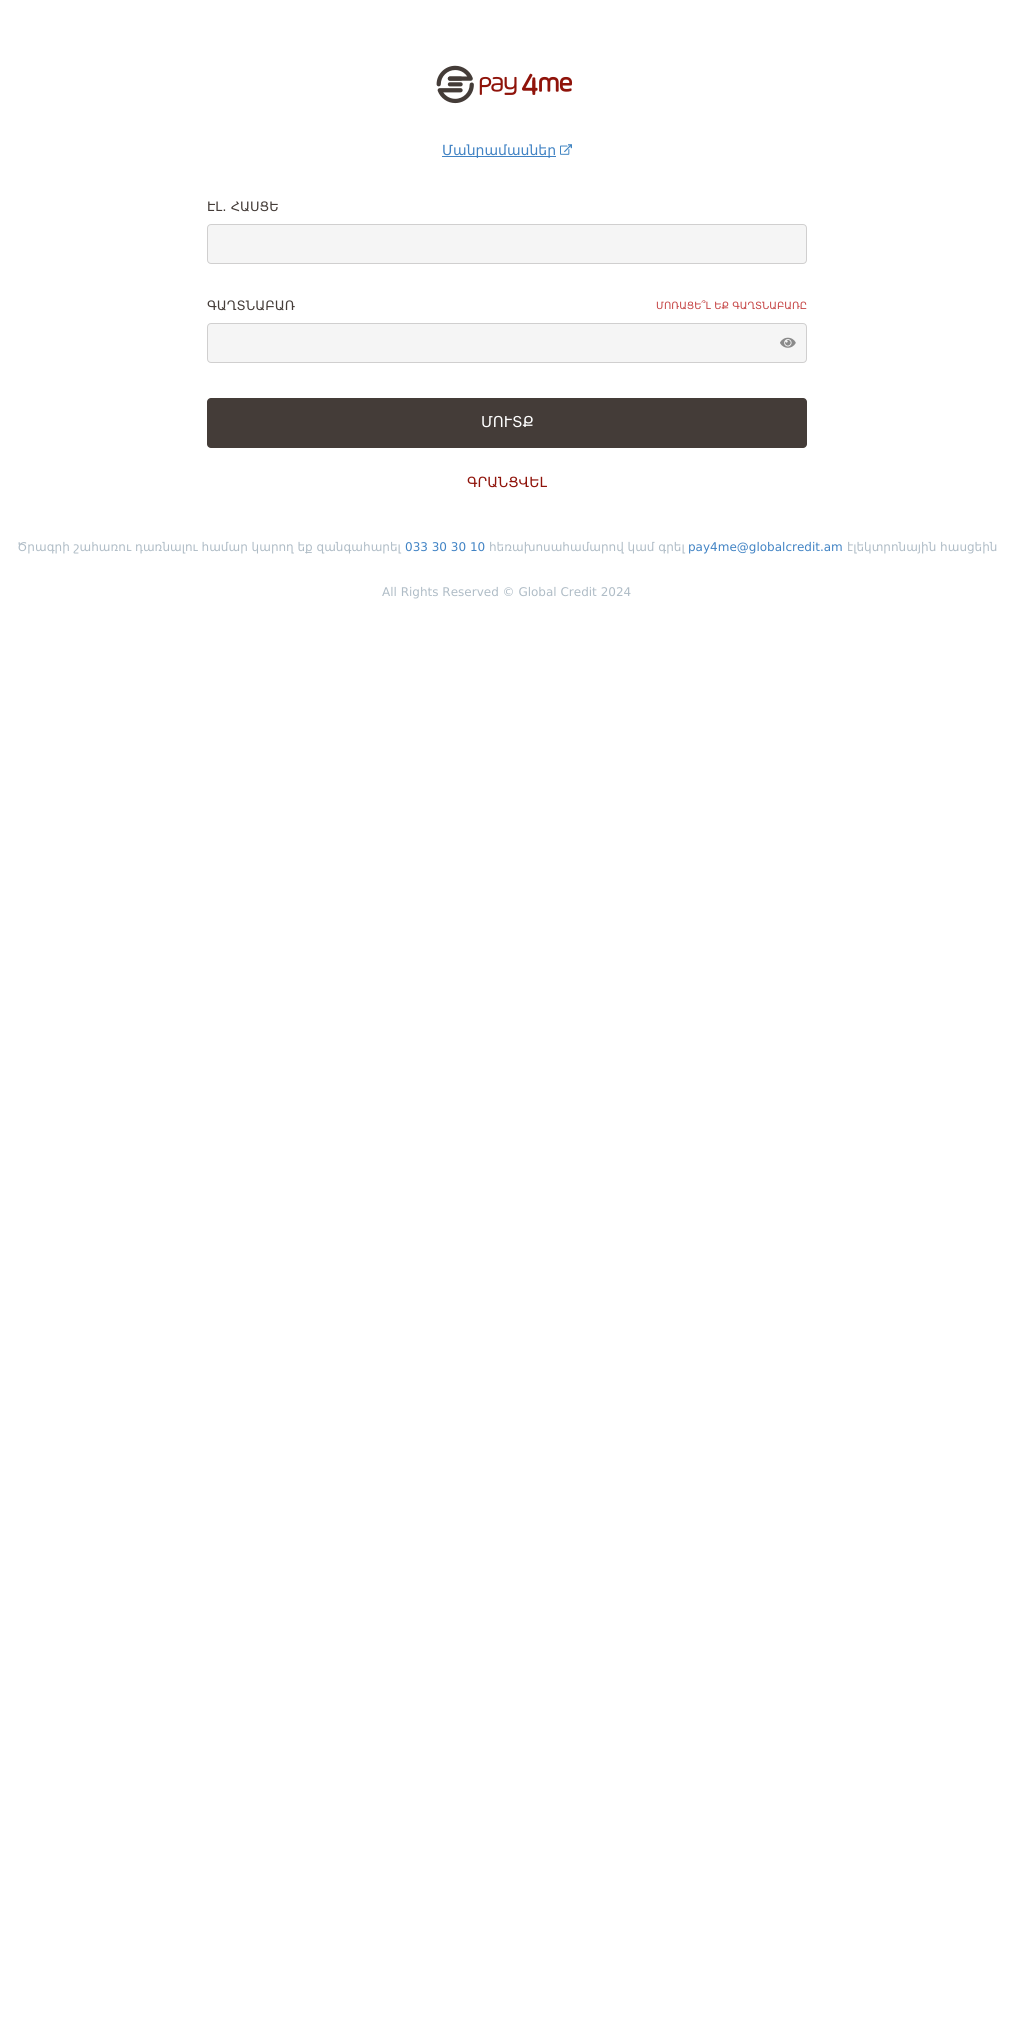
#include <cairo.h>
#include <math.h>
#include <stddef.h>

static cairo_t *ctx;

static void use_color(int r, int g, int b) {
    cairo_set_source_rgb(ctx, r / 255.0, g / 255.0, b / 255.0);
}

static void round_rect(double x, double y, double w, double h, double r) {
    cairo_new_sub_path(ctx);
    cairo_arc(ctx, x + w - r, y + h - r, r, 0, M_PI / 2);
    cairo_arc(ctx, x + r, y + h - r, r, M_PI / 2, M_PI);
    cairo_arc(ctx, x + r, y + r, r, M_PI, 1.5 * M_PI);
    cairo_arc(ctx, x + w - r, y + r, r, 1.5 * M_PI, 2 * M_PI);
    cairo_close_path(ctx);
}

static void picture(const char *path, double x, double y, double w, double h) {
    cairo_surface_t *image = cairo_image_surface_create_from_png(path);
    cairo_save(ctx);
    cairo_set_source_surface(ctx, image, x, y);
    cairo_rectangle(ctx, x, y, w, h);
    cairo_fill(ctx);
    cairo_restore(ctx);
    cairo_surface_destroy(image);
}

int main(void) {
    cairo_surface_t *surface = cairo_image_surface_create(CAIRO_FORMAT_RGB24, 1014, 2028);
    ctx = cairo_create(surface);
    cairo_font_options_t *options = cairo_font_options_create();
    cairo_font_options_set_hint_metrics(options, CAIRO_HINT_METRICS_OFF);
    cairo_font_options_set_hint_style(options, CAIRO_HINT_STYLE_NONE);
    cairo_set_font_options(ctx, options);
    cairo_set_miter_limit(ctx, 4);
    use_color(255, 255, 255);
    cairo_paint(ctx);
    picture("img1.png", 436, 65, 137, 39);
    use_color(65, 131, 196);
    cairo_rectangle(ctx, 442, 156, 114, 1);
    cairo_fill(ctx);
    cairo_select_font_face(ctx, "DejaVu Sans", CAIRO_FONT_SLANT_NORMAL, CAIRO_FONT_WEIGHT_NORMAL);
    cairo_set_font_size(ctx, 14);
    cairo_move_to(ctx, 442, 155);
    cairo_show_text(ctx, "Մանրամասներ");
    picture("img2.png", 560, 144, 12, 11);
    cairo_set_font_size(ctx, 13);
    use_color(68, 60, 56);
    cairo_move_to(ctx, 207, 211);
    cairo_show_text(ctx, "ԷԼ․ ՀԱՍՑԵ");
    use_color(245, 245, 245);
    round_rect(207.5, 224.5, 599, 39, 3.5);
    cairo_fill_preserve(ctx);
    use_color(208, 207, 207);
    cairo_set_line_width(ctx, 1);
    cairo_stroke(ctx);
    use_color(68, 60, 56);
    cairo_move_to(ctx, 207, 310);
    cairo_show_text(ctx, "ԳԱՂՏՆԱԲԱՌ");
    cairo_set_font_size(ctx, 10);
    use_color(196, 65, 65);
    cairo_move_to(ctx, 656, 309);
    cairo_show_text(ctx, "ՄՈՌԱՑԵ՞Լ ԵՔ ԳԱՂՏՆԱԲԱՌԸ");
    use_color(245, 245, 245);
    round_rect(207.5, 323.5, 599, 39, 3.5);
    cairo_fill_preserve(ctx);
    use_color(208, 207, 207);
    cairo_stroke(ctx);
    picture("img3.png", 780, 337, 16, 11);
    use_color(68, 60, 56);
    round_rect(207, 398, 600, 50, 4);
    cairo_fill(ctx);
    cairo_set_font_size(ctx, 15);
    use_color(255, 255, 255);
    cairo_move_to(ctx, 481, 427);
    cairo_show_text(ctx, "ՄՈՒՏՔ");
    cairo_set_font_size(ctx, 14);
    use_color(143, 19, 10);
    cairo_move_to(ctx, 467, 487);
    cairo_show_text(ctx, "ԳՐԱՆՑՎԵԼ");
    cairo_set_font_size(ctx, 12);
    use_color(175, 188, 198);
    cairo_move_to(ctx, 17, 551);
    cairo_show_text(ctx, "Ծրագրի շահառու դառնալու համար կարող եք զանգահարել");
    use_color(65, 131, 196);
    cairo_move_to(ctx, 405, 551);
    cairo_show_text(ctx, "033 30 30 10");
    use_color(175, 188, 198);
    cairo_move_to(ctx, 489, 551);
    cairo_show_text(ctx, "հեռախոսահամարով կամ գրել");
    use_color(65, 131, 196);
    cairo_move_to(ctx, 688, 551);
    cairo_show_text(ctx, "pay4me@globalcredit.am");
    use_color(175, 188, 198);
    cairo_move_to(ctx, 847, 551);
    cairo_show_text(ctx, "էլեկտրոնային հասցեին");
    cairo_move_to(ctx, 382, 596);
    cairo_show_text(ctx, "All Rights Reserved © Global Credit 2024");
    cairo_surface_write_to_png(surface, "result.png");
    cairo_font_options_destroy(options);
    cairo_destroy(ctx);
    cairo_surface_destroy(surface);
    return 0;
}
